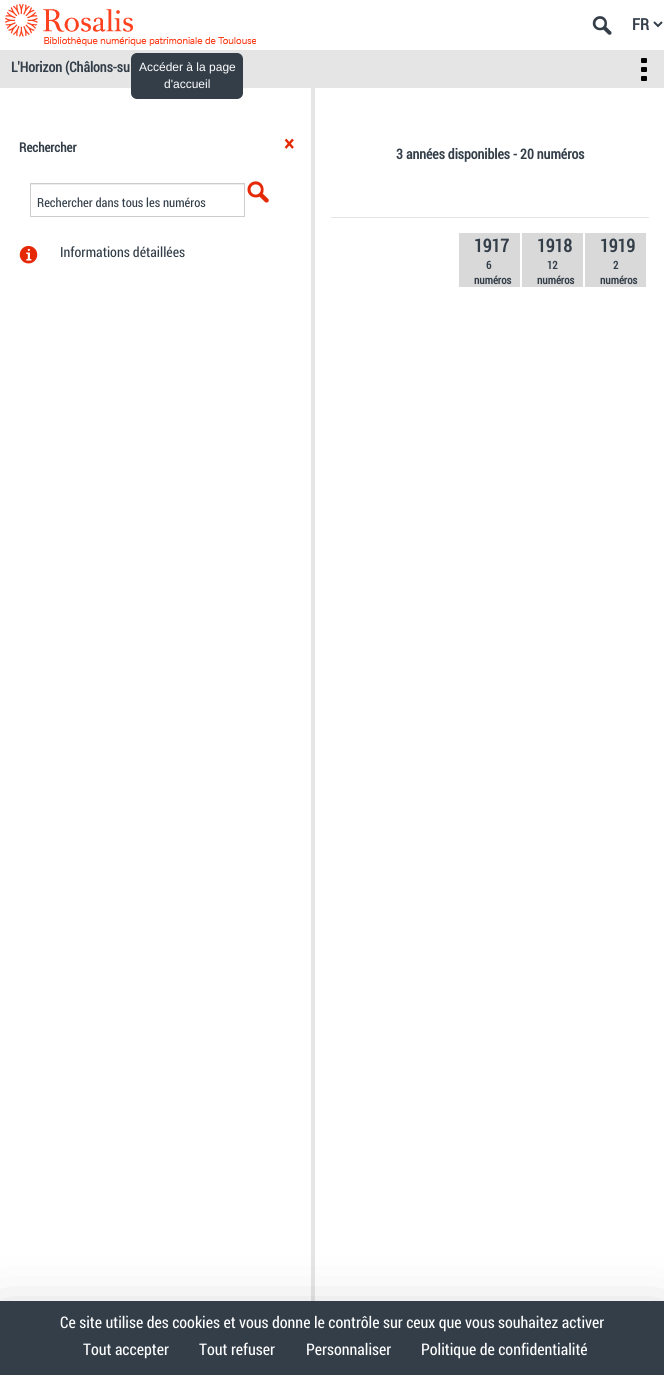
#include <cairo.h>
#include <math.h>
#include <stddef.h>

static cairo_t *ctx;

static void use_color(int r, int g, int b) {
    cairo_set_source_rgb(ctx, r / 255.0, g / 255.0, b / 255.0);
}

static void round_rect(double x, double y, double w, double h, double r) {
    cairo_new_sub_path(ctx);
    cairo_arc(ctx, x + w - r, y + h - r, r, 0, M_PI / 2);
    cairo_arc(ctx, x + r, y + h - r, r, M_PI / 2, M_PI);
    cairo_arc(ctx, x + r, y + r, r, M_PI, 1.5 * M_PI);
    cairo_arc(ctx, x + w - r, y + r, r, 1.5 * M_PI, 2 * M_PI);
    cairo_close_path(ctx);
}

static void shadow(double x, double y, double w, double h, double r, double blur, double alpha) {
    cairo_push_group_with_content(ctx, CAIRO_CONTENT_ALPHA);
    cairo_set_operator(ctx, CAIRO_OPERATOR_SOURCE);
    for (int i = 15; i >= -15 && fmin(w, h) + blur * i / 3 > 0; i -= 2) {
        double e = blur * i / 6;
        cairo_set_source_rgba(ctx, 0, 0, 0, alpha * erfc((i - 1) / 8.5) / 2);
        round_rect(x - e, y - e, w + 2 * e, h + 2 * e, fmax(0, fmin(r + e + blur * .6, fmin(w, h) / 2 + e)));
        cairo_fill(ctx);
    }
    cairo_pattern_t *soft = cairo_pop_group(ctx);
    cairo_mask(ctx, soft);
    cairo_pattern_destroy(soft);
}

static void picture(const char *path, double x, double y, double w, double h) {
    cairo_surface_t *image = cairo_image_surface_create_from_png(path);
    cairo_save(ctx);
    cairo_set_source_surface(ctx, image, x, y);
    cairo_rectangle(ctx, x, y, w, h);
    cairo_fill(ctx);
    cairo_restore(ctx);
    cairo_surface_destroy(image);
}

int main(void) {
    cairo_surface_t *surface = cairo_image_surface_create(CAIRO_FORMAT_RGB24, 664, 1375);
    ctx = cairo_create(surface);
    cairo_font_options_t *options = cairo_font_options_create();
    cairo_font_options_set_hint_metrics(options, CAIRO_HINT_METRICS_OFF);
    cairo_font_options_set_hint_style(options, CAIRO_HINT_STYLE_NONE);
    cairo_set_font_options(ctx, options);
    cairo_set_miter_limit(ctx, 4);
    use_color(255, 255, 255);
    cairo_paint(ctx);
    picture("img1.png", 592, 16, 20, 19);
    cairo_new_path(ctx);
    cairo_move_to(ctx, 654, 22);
    cairo_line_to(ctx, 658, 26);
    cairo_line_to(ctx, 662, 22);
    use_color(51, 62, 73);
    cairo_stroke(ctx);
    cairo_select_font_face(ctx, "Roboto Condensed", CAIRO_FONT_SLANT_NORMAL, CAIRO_FONT_WEIGHT_BOLD);
    cairo_set_font_size(ctx, 16);
    cairo_move_to(ctx, 632, 30);
    cairo_show_text(ctx, "FR");
    picture("img2.png", 5, 4, 251, 42);
    use_color(229, 229, 229);
    cairo_rectangle(ctx, 0, 50, 664, 38);
    cairo_fill(ctx);
    use_color(51, 62, 73);
    round_rect(131, 53, 112, 46, 6);
    cairo_fill(ctx);
    cairo_select_font_face(ctx, "Liberation Sans", CAIRO_FONT_SLANT_NORMAL, CAIRO_FONT_WEIGHT_NORMAL);
    cairo_set_font_size(ctx, 12);
    use_color(255, 255, 255);
    cairo_move_to(ctx, 139, 71);
    cairo_show_text(ctx, "Accéder à la page");
    cairo_move_to(ctx, 164, 88);
    cairo_show_text(ctx, "d'accueil");
    cairo_select_font_face(ctx, "Roboto Condensed", CAIRO_FONT_SLANT_NORMAL, CAIRO_FONT_WEIGHT_BOLD);
    cairo_set_font_size(ctx, 14);
    use_color(51, 62, 73);
    cairo_move_to(ctx, 11, 72);
    cairo_show_text(ctx, "L'Horizon (Châlons-su");
    use_color(0, 0, 0);
    round_rect(641, 58, 6, 5, 1);
    cairo_fill(ctx);
    round_rect(641, 67, 6, 5, 1);
    cairo_fill(ctx);
    round_rect(641, 76, 6, 5, 1);
    cairo_fill(ctx);
    cairo_set_font_size(ctx, 13);
    use_color(51, 62, 73);
    cairo_move_to(ctx, 19, 152);
    cairo_show_text(ctx, "Rechercher");
    cairo_set_font_size(ctx, 21);
    use_color(229, 40, 5);
    cairo_move_to(ctx, 284, 151);
    cairo_show_text(ctx, "×");
    use_color(236, 236, 236);
    cairo_rectangle(ctx, 31, 184, 213, 1);
    cairo_fill(ctx);
    cairo_rectangle(ctx, 30.5, 183.5, 214, 33);
    use_color(204, 204, 204);
    cairo_set_line_width(ctx, 1);
    cairo_stroke(ctx);
    cairo_select_font_face(ctx, "Roboto Condensed", CAIRO_FONT_SLANT_NORMAL, CAIRO_FONT_WEIGHT_NORMAL);
    cairo_set_font_size(ctx, 12.6);
    use_color(51, 62, 73);
    cairo_move_to(ctx, 37, 207);
    cairo_show_text(ctx, "Rechercher dans tous les numéros");
    picture("img3.png", 247, 181, 22, 22);
    picture("img4.png", 19, 245, 19, 19);
    cairo_set_font_size(ctx, 14);
    cairo_move_to(ctx, 60, 257);
    cairo_show_text(ctx, "Informations détaillées");
    use_color(229, 229, 229);
    cairo_rectangle(ctx, 311, 88, 4, 1213);
    cairo_fill(ctx);
    cairo_rectangle(ctx, 331, 217, 318, 1);
    cairo_fill(ctx);
    cairo_select_font_face(ctx, "Roboto Condensed", CAIRO_FONT_SLANT_NORMAL, CAIRO_FONT_WEIGHT_BOLD);
    use_color(51, 62, 73);
    cairo_move_to(ctx, 396, 159);
    cairo_show_text(ctx, "3 années disponibles - 20 numéros");
    use_color(217, 217, 217);
    cairo_rectangle(ctx, 459, 233, 61, 54);
    cairo_fill(ctx);
    cairo_set_font_size(ctx, 18);
    use_color(51, 62, 73);
    cairo_move_to(ctx, 474, 252);
    cairo_show_text(ctx, "1917");
    cairo_set_font_size(ctx, 11);
    cairo_move_to(ctx, 486, 269);
    cairo_show_text(ctx, "6");
    cairo_move_to(ctx, 474, 284);
    cairo_show_text(ctx, "numéros");
    use_color(217, 217, 217);
    cairo_rectangle(ctx, 522, 233, 61, 54);
    cairo_fill(ctx);
    cairo_set_font_size(ctx, 18);
    use_color(51, 62, 73);
    cairo_move_to(ctx, 537, 252);
    cairo_show_text(ctx, "1918");
    cairo_set_font_size(ctx, 11);
    cairo_move_to(ctx, 547, 269);
    cairo_show_text(ctx, "12");
    cairo_move_to(ctx, 537, 284);
    cairo_show_text(ctx, "numéros");
    use_color(217, 217, 217);
    cairo_rectangle(ctx, 585, 233, 61, 54);
    cairo_fill(ctx);
    cairo_set_font_size(ctx, 18);
    use_color(51, 62, 73);
    cairo_move_to(ctx, 600, 252);
    cairo_show_text(ctx, "1919");
    cairo_set_font_size(ctx, 11);
    cairo_move_to(ctx, 613, 269);
    cairo_show_text(ctx, "2");
    cairo_move_to(ctx, 600, 284);
    cairo_show_text(ctx, "numéros");
    use_color(0, 0, 0);
    shadow(0, 1321, 664, 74, 0, 30, 0.25);
    use_color(51, 62, 73);
    cairo_rectangle(ctx, 0, 1301, 664, 74);
    cairo_fill(ctx);
    cairo_select_font_face(ctx, "Roboto Condensed", CAIRO_FONT_SLANT_NORMAL, CAIRO_FONT_WEIGHT_NORMAL);
    cairo_set_font_size(ctx, 16);
    use_color(255, 255, 255);
    cairo_move_to(ctx, 60, 1328);
    cairo_show_text(ctx, "Ce site utilise des cookies et vous donne le contrôle sur ceux que vous souhaitez activer");
    cairo_move_to(ctx, 83, 1355);
    cairo_show_text(ctx, "Tout accepter");
    cairo_move_to(ctx, 199, 1355);
    cairo_show_text(ctx, "Tout refuser");
    cairo_move_to(ctx, 306, 1355);
    cairo_show_text(ctx, "Personnaliser");
    cairo_move_to(ctx, 421, 1355);
    cairo_show_text(ctx, "Politique de confidentialité");
    cairo_surface_write_to_png(surface, "result.png");
    cairo_font_options_destroy(options);
    cairo_destroy(ctx);
    cairo_surface_destroy(surface);
    return 0;
}
